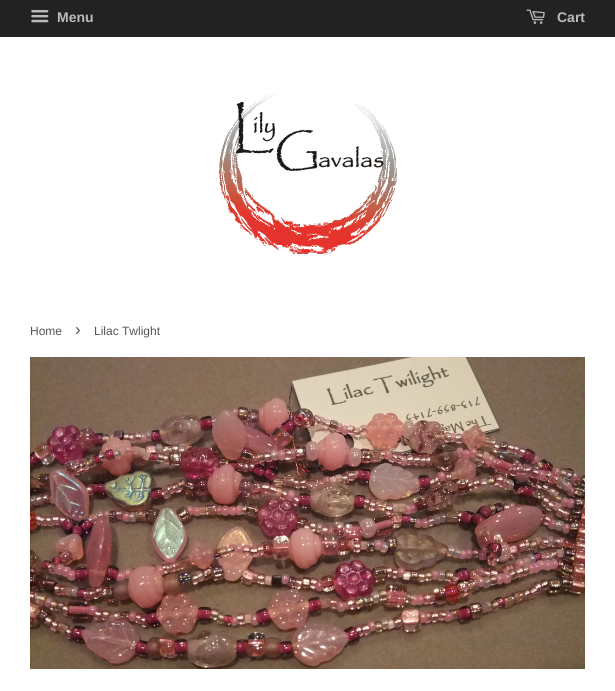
#include <cairo.h>
#include <math.h>
#include <stddef.h>

static cairo_t *ctx;

static void use_color(int r, int g, int b) {
    cairo_set_source_rgb(ctx, r / 255.0, g / 255.0, b / 255.0);
}

static void picture(const char *path, double x, double y, double w, double h) {
    cairo_surface_t *image = cairo_image_surface_create_from_png(path);
    cairo_save(ctx);
    cairo_set_source_surface(ctx, image, x, y);
    cairo_rectangle(ctx, x, y, w, h);
    cairo_fill(ctx);
    cairo_restore(ctx);
    cairo_surface_destroy(image);
}

int main(void) {
    cairo_surface_t *surface = cairo_image_surface_create(CAIRO_FORMAT_RGB24, 615, 691);
    ctx = cairo_create(surface);
    cairo_font_options_t *options = cairo_font_options_create();
    cairo_font_options_set_hint_metrics(options, CAIRO_HINT_METRICS_OFF);
    cairo_font_options_set_hint_style(options, CAIRO_HINT_STYLE_NONE);
    cairo_set_font_options(ctx, options);
    cairo_set_miter_limit(ctx, 4);
    use_color(255, 255, 255);
    cairo_paint(ctx);
    use_color(34, 34, 34);
    cairo_rectangle(ctx, 0, 0, 615, 37);
    cairo_fill(ctx);
    picture("img1.png", 31, 10, 18, 13);
    cairo_select_font_face(ctx, "Liberation Sans", CAIRO_FONT_SLANT_NORMAL, CAIRO_FONT_WEIGHT_BOLD);
    cairo_set_font_size(ctx, 14);
    use_color(187, 187, 187);
    cairo_move_to(ctx, 57, 22);
    cairo_show_text(ctx, "Menu");
    picture("img2.png", 526, 9, 19, 15);
    cairo_move_to(ctx, 557, 22);
    cairo_show_text(ctx, "Cart");
    picture("img3.png", 219, 93, 178, 163);
    cairo_select_font_face(ctx, "Liberation Sans", CAIRO_FONT_SLANT_NORMAL, CAIRO_FONT_WEIGHT_NORMAL);
    cairo_set_font_size(ctx, 12);
    use_color(85, 85, 85);
    cairo_move_to(ctx, 30, 335);
    cairo_show_text(ctx, "Home");
    cairo_set_font_size(ctx, 17);
    cairo_move_to(ctx, 75, 335);
    cairo_show_text(ctx, "›");
    cairo_set_font_size(ctx, 12);
    cairo_move_to(ctx, 94, 335);
    cairo_show_text(ctx, "Lilac Twlight");
    picture("img4.png", 30, 357, 555, 312);
    cairo_surface_write_to_png(surface, "result.png");
    cairo_font_options_destroy(options);
    cairo_destroy(ctx);
    cairo_surface_destroy(surface);
    return 0;
}
